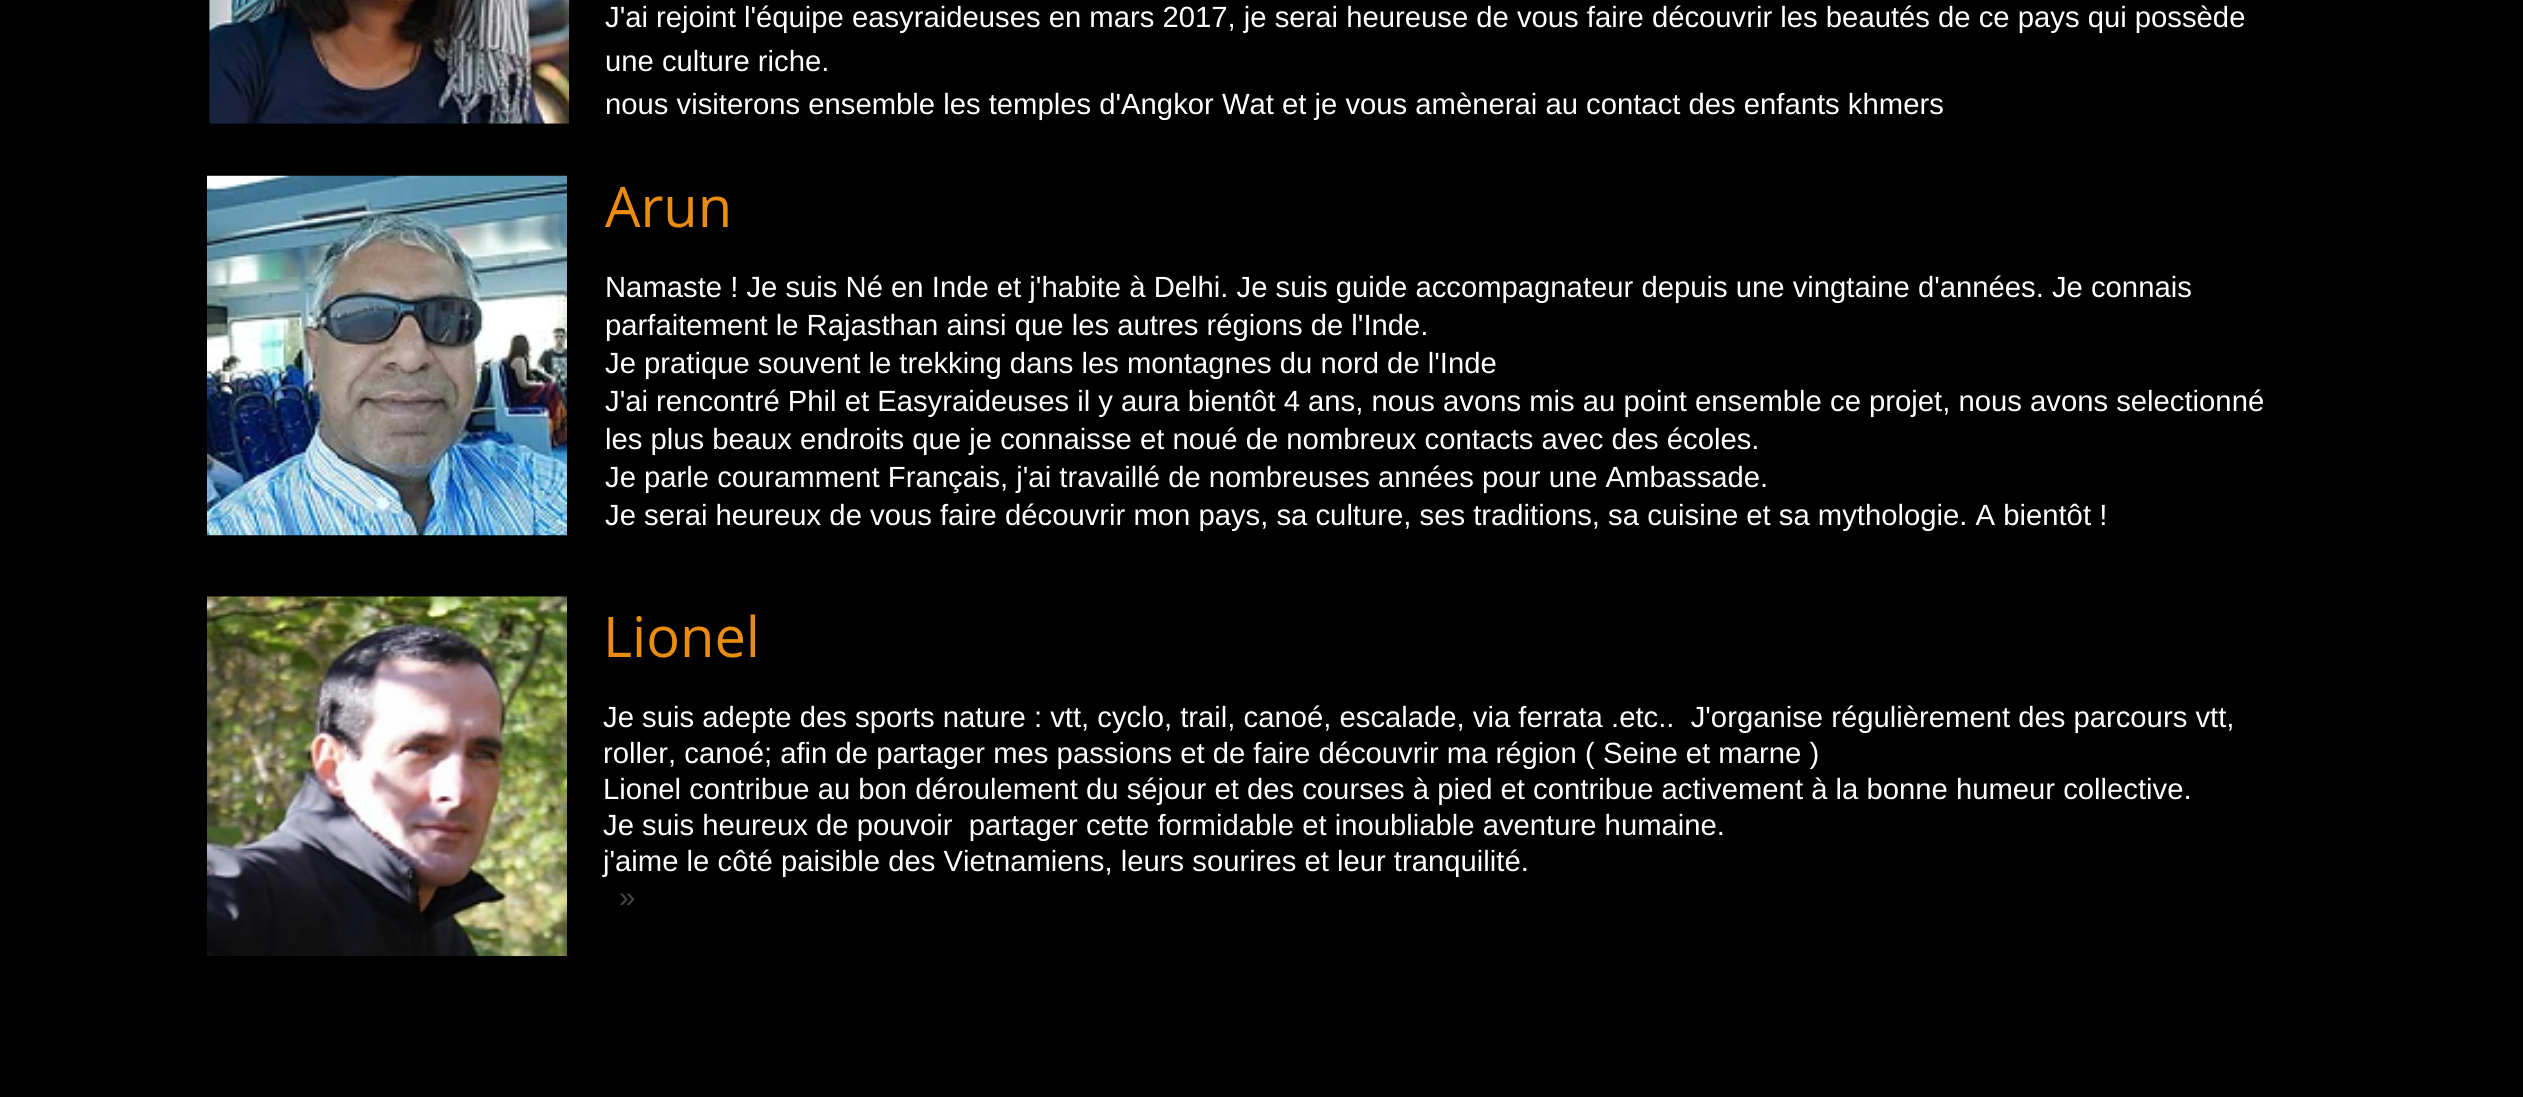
#include <cairo.h>
#include <math.h>
#include <stddef.h>

static cairo_t *ctx;

static void use_color(int r, int g, int b) {
    cairo_set_source_rgb(ctx, r / 255.0, g / 255.0, b / 255.0);
}

static void picture(const char *path, double x, double y, double w, double h) {
    cairo_surface_t *image = cairo_image_surface_create_from_png(path);
    cairo_save(ctx);
    cairo_set_source_surface(ctx, image, x, y);
    cairo_rectangle(ctx, x, y, w, h);
    cairo_fill(ctx);
    cairo_restore(ctx);
    cairo_surface_destroy(image);
}

int main(void) {
    cairo_surface_t *surface = cairo_image_surface_create(CAIRO_FORMAT_RGB24, 2523, 1097);
    ctx = cairo_create(surface);
    cairo_font_options_t *options = cairo_font_options_create();
    cairo_font_options_set_hint_metrics(options, CAIRO_HINT_METRICS_OFF);
    cairo_font_options_set_hint_style(options, CAIRO_HINT_STYLE_NONE);
    cairo_set_font_options(ctx, options);
    cairo_set_miter_limit(ctx, 4);
    use_color(0, 0, 0);
    cairo_paint(ctx);
    picture("img1.png", 209, 0, 361, 124);
    cairo_select_font_face(ctx, "Liberation Sans", CAIRO_FONT_SLANT_NORMAL, CAIRO_FONT_WEIGHT_NORMAL);
    cairo_set_font_size(ctx, 29.25);
    use_color(255, 255, 255);
    cairo_move_to(ctx, 605, 27);
    cairo_show_text(ctx, "J'ai rejoint l'équipe easyraideuses en mars 2017, je serai heureuse de vous faire découvrir les beautés de ce pays qui possède");
    cairo_move_to(ctx, 605, 71);
    cairo_show_text(ctx, "une culture riche.");
    cairo_move_to(ctx, 605, 114);
    cairo_show_text(ctx, "nous visiterons ensemble les temples d'Angkor Wat et je vous amènerai au contact des enfants khmers");
    picture("img2.png", 207, 175, 360, 361);
    cairo_select_font_face(ctx, "Open Sans", CAIRO_FONT_SLANT_NORMAL, CAIRO_FONT_WEIGHT_NORMAL);
    cairo_set_font_size(ctx, 56);
    use_color(234, 140, 16);
    cairo_move_to(ctx, 605, 227);
    cairo_show_text(ctx, "Arun");
    cairo_select_font_face(ctx, "Liberation Sans", CAIRO_FONT_SLANT_NORMAL, CAIRO_FONT_WEIGHT_NORMAL);
    cairo_set_font_size(ctx, 29.25);
    use_color(255, 255, 255);
    cairo_move_to(ctx, 605, 297);
    cairo_show_text(ctx, "Namaste ! Je suis Né en Inde et j'habite à Delhi. Je suis guide accompagnateur depuis une vingtaine d'années. Je connais");
    cairo_move_to(ctx, 605, 335);
    cairo_show_text(ctx, "parfaitement le Rajasthan ainsi que les autres régions de l'Inde.");
    cairo_move_to(ctx, 605, 373);
    cairo_show_text(ctx, "Je pratique souvent le trekking dans les montagnes du nord de l'Inde");
    cairo_move_to(ctx, 605, 411);
    cairo_show_text(ctx, "J'ai rencontré Phil et Easyraideuses il y aura bientôt 4 ans, nous avons mis au point ensemble ce projet, nous avons selectionné");
    cairo_move_to(ctx, 605, 449);
    cairo_show_text(ctx, "les plus beaux endroits que je connaisse et noué de nombreux contacts avec des écoles.");
    cairo_move_to(ctx, 605, 487);
    cairo_show_text(ctx, "Je parle couramment Français, j'ai travaillé de nombreuses années pour une Ambassade.");
    cairo_move_to(ctx, 605, 525);
    cairo_show_text(ctx, "Je serai heureux de vous faire découvrir mon pays, sa culture, ses traditions, sa cuisine et sa mythologie. A bientôt !");
    picture("img3.png", 207, 596, 360, 361);
    cairo_select_font_face(ctx, "Open Sans", CAIRO_FONT_SLANT_NORMAL, CAIRO_FONT_WEIGHT_NORMAL);
    cairo_set_font_size(ctx, 56);
    use_color(234, 140, 16);
    cairo_move_to(ctx, 603, 657);
    cairo_show_text(ctx, "Lionel");
    cairo_select_font_face(ctx, "Liberation Sans", CAIRO_FONT_SLANT_NORMAL, CAIRO_FONT_WEIGHT_NORMAL);
    cairo_set_font_size(ctx, 29.25);
    use_color(255, 255, 255);
    cairo_move_to(ctx, 603, 727);
    cairo_show_text(ctx, "Je suis adepte des sports nature : vtt, cyclo, trail, canoé, escalade, via ferrata .etc..  J'organise régulièrement des parcours vtt,");
    cairo_move_to(ctx, 603, 763);
    cairo_show_text(ctx, "roller, canoé; afin de partager mes passions et de faire découvrir ma région ( Seine et marne )");
    cairo_move_to(ctx, 603, 799);
    cairo_show_text(ctx, "Lionel contribue au bon déroulement du séjour et des courses à pied et contribue activement à la bonne humeur collective.");
    cairo_move_to(ctx, 603, 835);
    cairo_show_text(ctx, "Je suis heureux de pouvoir  partager cette formidable et inoubliable aventure humaine.");
    cairo_move_to(ctx, 603, 871);
    cairo_show_text(ctx, "j'aime le côté paisible des Vietnamiens, leurs sourires et leur tranquilité.");
    use_color(70, 70, 70);
    cairo_move_to(ctx, 619, 907);
    cairo_show_text(ctx, "»");
    cairo_surface_write_to_png(surface, "result.png");
    cairo_font_options_destroy(options);
    cairo_destroy(ctx);
    cairo_surface_destroy(surface);
    return 0;
}
